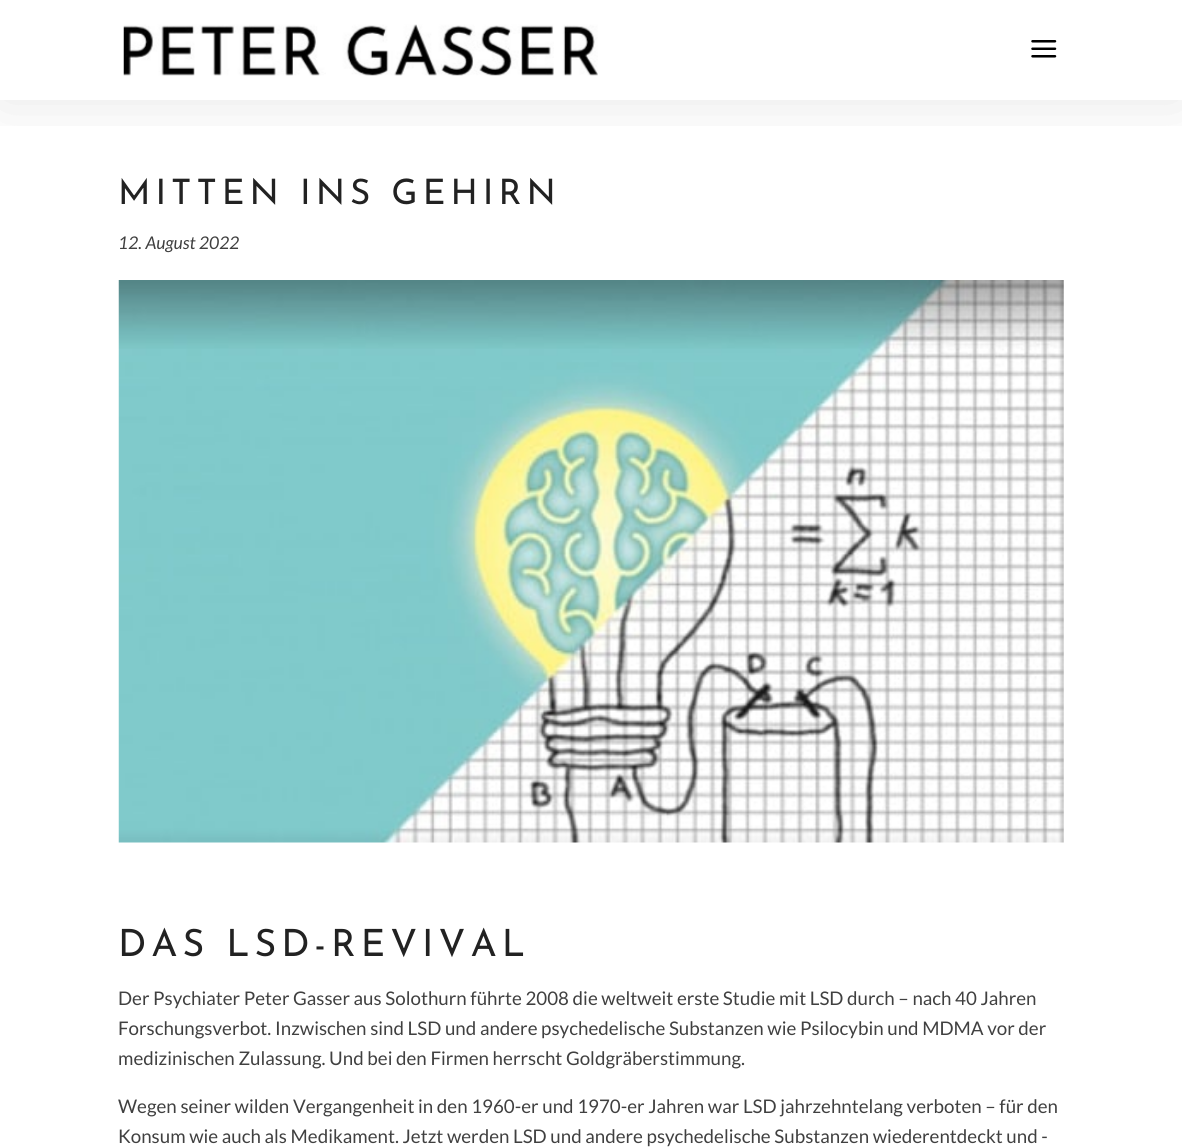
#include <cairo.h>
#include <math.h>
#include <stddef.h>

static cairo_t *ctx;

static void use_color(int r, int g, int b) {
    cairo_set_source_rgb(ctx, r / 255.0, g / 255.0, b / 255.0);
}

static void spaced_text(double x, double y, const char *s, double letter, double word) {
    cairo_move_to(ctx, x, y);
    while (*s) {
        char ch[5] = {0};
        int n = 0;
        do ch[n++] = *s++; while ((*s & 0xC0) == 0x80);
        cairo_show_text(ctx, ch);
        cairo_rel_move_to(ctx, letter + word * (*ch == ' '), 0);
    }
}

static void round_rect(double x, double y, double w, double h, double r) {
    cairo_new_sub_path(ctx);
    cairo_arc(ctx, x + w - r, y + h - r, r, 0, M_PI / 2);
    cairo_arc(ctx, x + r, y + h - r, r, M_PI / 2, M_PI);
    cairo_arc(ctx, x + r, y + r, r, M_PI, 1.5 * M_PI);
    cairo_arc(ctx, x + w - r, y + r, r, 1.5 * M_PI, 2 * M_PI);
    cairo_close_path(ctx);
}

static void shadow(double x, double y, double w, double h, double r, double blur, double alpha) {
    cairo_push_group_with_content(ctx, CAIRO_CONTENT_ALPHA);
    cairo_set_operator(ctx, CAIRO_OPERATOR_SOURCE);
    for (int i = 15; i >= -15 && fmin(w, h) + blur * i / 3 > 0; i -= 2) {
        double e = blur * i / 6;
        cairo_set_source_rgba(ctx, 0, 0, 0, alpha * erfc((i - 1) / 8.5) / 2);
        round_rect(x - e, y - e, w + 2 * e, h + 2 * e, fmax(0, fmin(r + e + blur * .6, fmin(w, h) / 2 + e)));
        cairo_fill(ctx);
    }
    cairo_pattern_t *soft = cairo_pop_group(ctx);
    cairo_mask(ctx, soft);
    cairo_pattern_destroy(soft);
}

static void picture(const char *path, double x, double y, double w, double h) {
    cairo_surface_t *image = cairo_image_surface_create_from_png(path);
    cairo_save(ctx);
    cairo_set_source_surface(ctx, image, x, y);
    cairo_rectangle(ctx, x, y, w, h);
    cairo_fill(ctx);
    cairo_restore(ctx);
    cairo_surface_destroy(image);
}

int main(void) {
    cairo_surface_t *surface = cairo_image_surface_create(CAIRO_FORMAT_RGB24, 1182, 1148);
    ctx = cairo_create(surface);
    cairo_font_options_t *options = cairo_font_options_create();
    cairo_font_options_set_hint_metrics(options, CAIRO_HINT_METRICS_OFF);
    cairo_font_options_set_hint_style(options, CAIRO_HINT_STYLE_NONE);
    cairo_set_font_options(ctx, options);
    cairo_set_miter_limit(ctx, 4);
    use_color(255, 255, 255);
    cairo_paint(ctx);
    cairo_save(ctx);
    cairo_rectangle(ctx, 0, 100, 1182, 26);
    cairo_clip(ctx);
    use_color(0, 0, 0);
    shadow(0, 0, 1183, 100, 0, 31, 0.1);
    cairo_restore(ctx);
    picture("img1.png", 123, 24, 475, 52);
    picture("img2.png", 1031, 40, 26, 18);
    cairo_select_font_face(ctx, "Josefin Sans", CAIRO_FONT_SLANT_NORMAL, CAIRO_FONT_WEIGHT_NORMAL);
    cairo_set_font_size(ctx, 35);
    use_color(34, 34, 34);
    spaced_text(118, 204, "MITTEN INS GEHIRN", 5, 0);
    cairo_select_font_face(ctx, "Lato", CAIRO_FONT_SLANT_ITALIC, CAIRO_FONT_WEIGHT_NORMAL);
    cairo_set_font_size(ctx, 17.5);
    use_color(64, 64, 64);
    cairo_move_to(ctx, 118, 249);
    cairo_show_text(ctx, "12. August 2022");
    picture("img3.png", 118, 280, 946, 563);
    cairo_select_font_face(ctx, "Josefin Sans", CAIRO_FONT_SLANT_NORMAL, CAIRO_FONT_WEIGHT_NORMAL);
    cairo_set_font_size(ctx, 37.5);
    use_color(34, 34, 34);
    spaced_text(118, 956, "DAS LSD-REVIVAL", 5, 0);
    cairo_select_font_face(ctx, "Lato", CAIRO_FONT_SLANT_NORMAL, CAIRO_FONT_WEIGHT_NORMAL);
    cairo_set_font_size(ctx, 18.75);
    use_color(64, 64, 64);
    cairo_move_to(ctx, 118, 1005);
    cairo_show_text(ctx, "Der Psychiater Peter Gasser aus Solothurn führte 2008 die weltweit erste Studie mit LSD durch – nach 40 Jahren");
    cairo_move_to(ctx, 118, 1035);
    cairo_show_text(ctx, "Forschungsverbot. Inzwischen sind LSD und andere psychedelische Substanzen wie Psilocybin und MDMA vor der");
    cairo_move_to(ctx, 118, 1065);
    cairo_show_text(ctx, "medizinischen Zulassung. Und bei den Firmen herrscht Goldgräberstimmung.");
    cairo_move_to(ctx, 118, 1113);
    cairo_show_text(ctx, "Wegen seiner wilden Vergangenheit in den 1960-er und 1970-er Jahren war LSD jahrzehntelang verboten – für den");
    cairo_move_to(ctx, 118, 1143);
    cairo_show_text(ctx, "Konsum wie auch als Medikament. Jetzt werden LSD und andere psychedelische Substanzen wiederentdeckt und -");
    cairo_surface_write_to_png(surface, "result.png");
    cairo_font_options_destroy(options);
    cairo_destroy(ctx);
    cairo_surface_destroy(surface);
    return 0;
}
